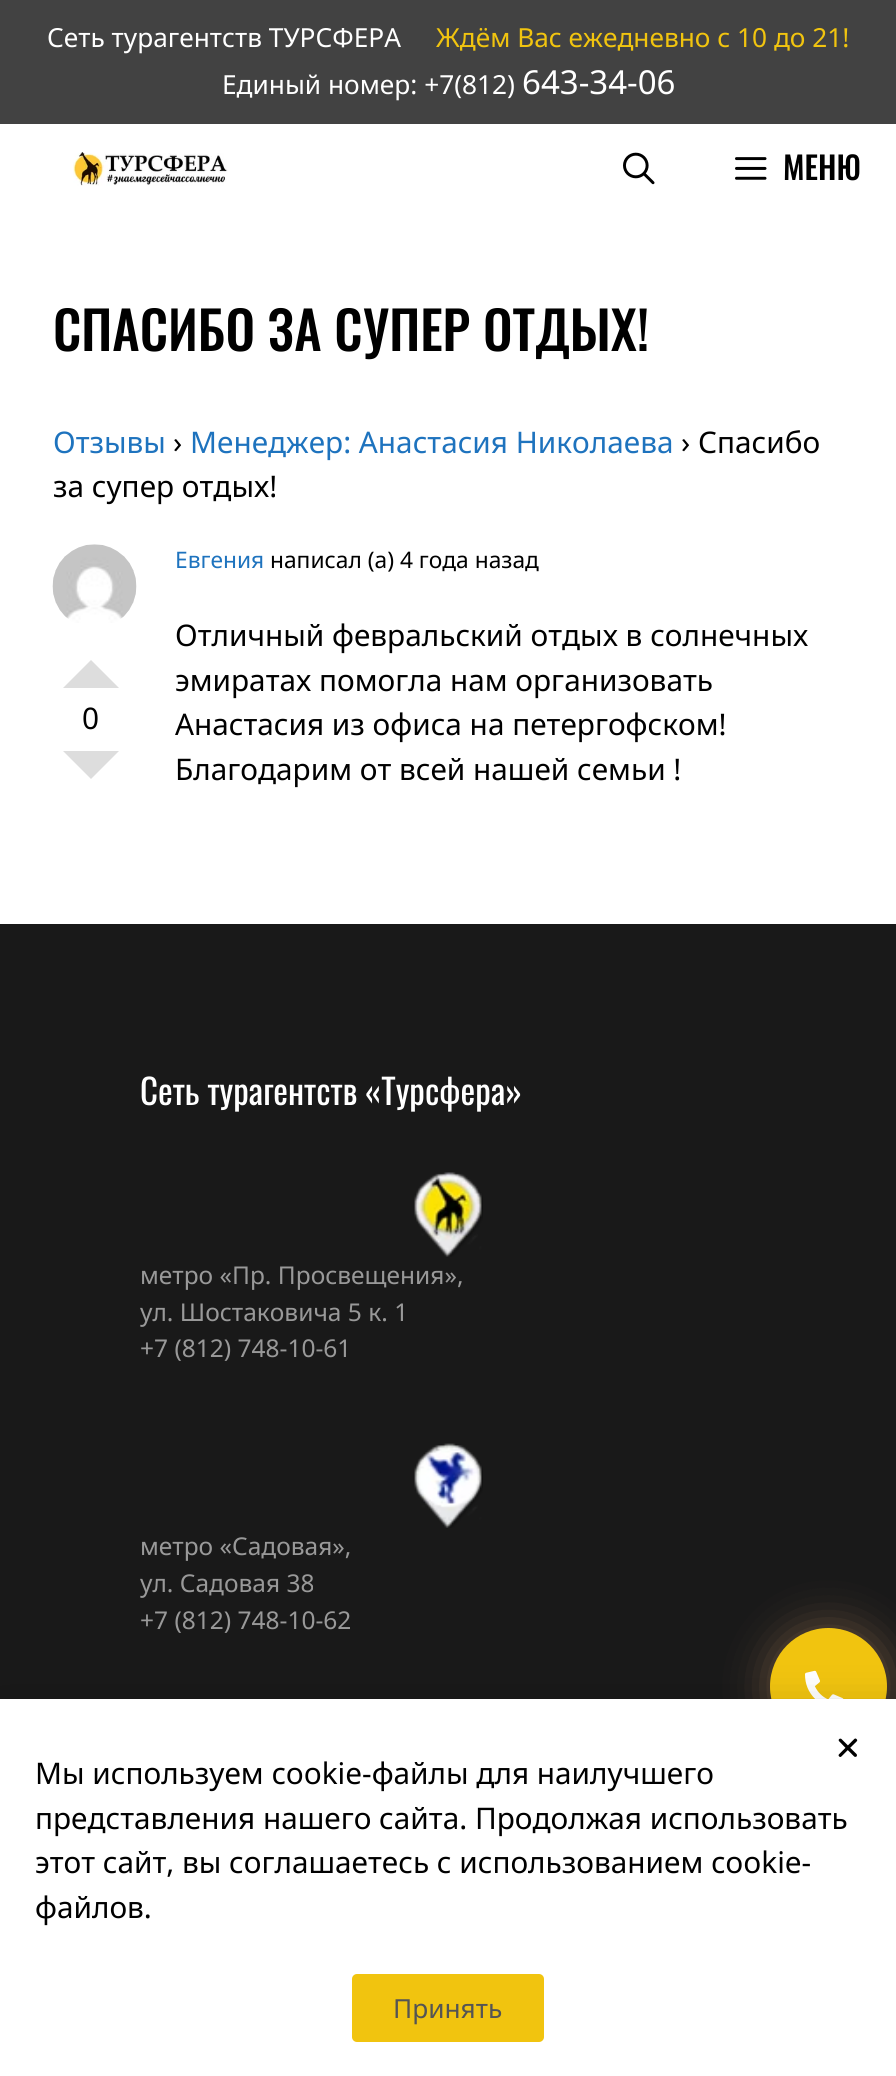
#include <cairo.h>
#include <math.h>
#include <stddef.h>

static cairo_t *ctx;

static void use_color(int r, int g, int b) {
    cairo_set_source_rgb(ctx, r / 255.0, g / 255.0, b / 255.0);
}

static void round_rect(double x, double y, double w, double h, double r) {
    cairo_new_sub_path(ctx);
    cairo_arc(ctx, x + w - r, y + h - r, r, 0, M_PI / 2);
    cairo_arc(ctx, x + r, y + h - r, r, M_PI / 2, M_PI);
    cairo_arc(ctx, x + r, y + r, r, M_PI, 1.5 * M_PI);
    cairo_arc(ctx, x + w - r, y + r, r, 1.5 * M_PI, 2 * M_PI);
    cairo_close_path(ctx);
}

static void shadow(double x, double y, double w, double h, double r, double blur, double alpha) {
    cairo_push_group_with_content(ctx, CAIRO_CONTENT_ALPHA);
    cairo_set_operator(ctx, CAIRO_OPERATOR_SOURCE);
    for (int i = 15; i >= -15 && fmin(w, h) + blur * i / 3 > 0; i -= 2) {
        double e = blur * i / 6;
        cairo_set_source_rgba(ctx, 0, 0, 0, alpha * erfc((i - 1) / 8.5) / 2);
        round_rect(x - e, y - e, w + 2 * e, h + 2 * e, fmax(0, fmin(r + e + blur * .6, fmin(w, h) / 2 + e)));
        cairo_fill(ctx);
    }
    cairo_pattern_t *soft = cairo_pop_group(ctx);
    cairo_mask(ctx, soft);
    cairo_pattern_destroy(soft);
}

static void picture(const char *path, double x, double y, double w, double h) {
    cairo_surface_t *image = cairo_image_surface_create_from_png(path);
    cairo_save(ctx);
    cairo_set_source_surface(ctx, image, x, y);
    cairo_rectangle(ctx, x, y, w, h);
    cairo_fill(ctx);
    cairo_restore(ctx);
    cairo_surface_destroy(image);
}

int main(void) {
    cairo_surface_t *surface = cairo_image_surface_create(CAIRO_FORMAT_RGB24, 896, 2076);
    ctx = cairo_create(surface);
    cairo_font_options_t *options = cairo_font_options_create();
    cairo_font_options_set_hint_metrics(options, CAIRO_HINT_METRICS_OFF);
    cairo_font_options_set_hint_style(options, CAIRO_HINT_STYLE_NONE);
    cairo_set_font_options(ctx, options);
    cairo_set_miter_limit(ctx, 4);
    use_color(255, 255, 255);
    cairo_paint(ctx);
    use_color(66, 66, 66);
    cairo_rectangle(ctx, 0, 0, 896, 124);
    cairo_fill(ctx);
    cairo_select_font_face(ctx, "Noto Sans", CAIRO_FONT_SLANT_NORMAL, CAIRO_FONT_WEIGHT_NORMAL);
    cairo_set_font_size(ctx, 26.25);
    use_color(255, 255, 255);
    cairo_move_to(ctx, 47, 47);
    cairo_show_text(ctx, "Сеть турагентств ТУРСФЕРА");
    use_color(241, 196, 15);
    cairo_move_to(ctx, 436, 47);
    cairo_show_text(ctx, "Ждём Вас ежедневно с 10 до 21!");
    use_color(255, 255, 255);
    cairo_move_to(ctx, 222, 94);
    cairo_show_text(ctx, "Единый номер: +7(812)");
    cairo_set_font_size(ctx, 33);
    cairo_move_to(ctx, 522, 94);
    cairo_show_text(ctx, "643-34-06");
    picture("img1.png", 73, 152, 155, 34);
    picture("img2.png", 623, 152, 32, 33);
    picture("img3.png", 735, 157, 32, 23);
    cairo_select_font_face(ctx, "Oswald Medium", CAIRO_FONT_SLANT_NORMAL, CAIRO_FONT_WEIGHT_NORMAL);
    cairo_set_font_size(ctx, 31.5);
    use_color(0, 0, 0);
    cairo_move_to(ctx, 783, 180);
    cairo_show_text(ctx, "МЕНЮ");
    cairo_set_font_size(ctx, 52.5);
    cairo_move_to(ctx, 53, 351);
    cairo_show_text(ctx, "СПАСИБО ЗА СУПЕР ОТДЫХ!");
    cairo_select_font_face(ctx, "Noto Sans", CAIRO_FONT_SLANT_NORMAL, CAIRO_FONT_WEIGHT_NORMAL);
    cairo_set_font_size(ctx, 29.75);
    use_color(30, 115, 190);
    cairo_move_to(ctx, 53, 453);
    cairo_show_text(ctx, "Отзывы");
    use_color(0, 0, 0);
    cairo_move_to(ctx, 173, 453);
    cairo_show_text(ctx, "›");
    use_color(30, 115, 190);
    cairo_move_to(ctx, 190, 453);
    cairo_show_text(ctx, "Менеджер: Анастасия Николаева");
    use_color(0, 0, 0);
    cairo_move_to(ctx, 681, 453);
    cairo_show_text(ctx, "› Спасибо");
    cairo_move_to(ctx, 53, 497);
    cairo_show_text(ctx, "за супер отдых!");
    picture("img4.png", 52, 544, 85, 79);
    cairo_set_font_size(ctx, 22.75);
    use_color(30, 115, 190);
    cairo_move_to(ctx, 175, 568);
    cairo_show_text(ctx, "Евгения");
    use_color(0, 0, 0);
    cairo_move_to(ctx, 270, 568);
    cairo_show_text(ctx, "написал (а) 4 года назад");
    use_color(221, 221, 221);
    cairo_new_path(ctx);
    cairo_move_to(ctx, 119, 688);
    cairo_line_to(ctx, 63, 688);
    cairo_line_to(ctx, 91, 660);
    cairo_close_path(ctx);
    cairo_fill(ctx);
    cairo_set_font_size(ctx, 29.75);
    use_color(0, 0, 0);
    cairo_move_to(ctx, 82, 729);
    cairo_show_text(ctx, "0");
    use_color(221, 221, 221);
    cairo_new_path(ctx);
    cairo_move_to(ctx, 63, 751);
    cairo_line_to(ctx, 119, 751);
    cairo_line_to(ctx, 91, 779);
    cairo_close_path(ctx);
    cairo_fill(ctx);
    use_color(0, 0, 0);
    cairo_move_to(ctx, 175, 646);
    cairo_show_text(ctx, "Отличный февральский отдых в солнечных");
    cairo_move_to(ctx, 175, 691);
    cairo_show_text(ctx, "эмиратах помогла нам организовать");
    cairo_move_to(ctx, 175, 735);
    cairo_show_text(ctx, "Анастасия из офиса на петергофском!");
    cairo_move_to(ctx, 175, 780);
    cairo_show_text(ctx, "Благодарим от всей нашей семьи !");
    use_color(25, 25, 25);
    cairo_rectangle(ctx, 0, 924, 896, 775);
    cairo_fill(ctx);
    cairo_select_font_face(ctx, "Oswald", CAIRO_FONT_SLANT_NORMAL, CAIRO_FONT_WEIGHT_NORMAL);
    cairo_set_font_size(ctx, 35);
    use_color(255, 255, 255);
    cairo_move_to(ctx, 140, 1105);
    cairo_show_text(ctx, "Сеть турагентств «Турсфера»");
    picture("img5.png", 414, 1172, 69, 85);
    cairo_select_font_face(ctx, "Noto Sans", CAIRO_FONT_SLANT_NORMAL, CAIRO_FONT_WEIGHT_NORMAL);
    cairo_set_font_size(ctx, 24.5);
    use_color(153, 153, 153);
    cairo_move_to(ctx, 140, 1284);
    cairo_show_text(ctx, "метро «Пр. Просвещения»,");
    cairo_move_to(ctx, 140, 1321);
    cairo_show_text(ctx, "ул. Шостаковича 5 к. 1");
    cairo_move_to(ctx, 140, 1357);
    cairo_show_text(ctx, "+7 (812) 748-10-61");
    picture("img6.png", 414, 1443, 69, 85);
    cairo_move_to(ctx, 140, 1555);
    cairo_show_text(ctx, "метро «Садовая»,");
    cairo_move_to(ctx, 140, 1592);
    cairo_show_text(ctx, "ул. Садовая 38");
    cairo_move_to(ctx, 140, 1629);
    cairo_show_text(ctx, "+7 (812) 748-10-62");
    use_color(255, 184, 124);
    shadow(770, 1628, 117, 117, 58.5, 22, 0.35);
    use_color(241, 196, 15);
    cairo_arc(ctx, 828.5, 1686.5, 58.5, 0, 2 * M_PI);
    cairo_fill(ctx);
    picture("img7.png", 805, 1670, 39, 29);
    use_color(0, 0, 0);
    shadow(-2, 1708, 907, 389, 0, 20, 0.2);
    use_color(255, 255, 255);
    cairo_rectangle(ctx, 0, 1699, 896, 377);
    cairo_fill(ctx);
    picture("img8.png", 838, 1738, 20, 19);
    cairo_set_font_size(ctx, 29.75);
    use_color(0, 0, 0);
    cairo_move_to(ctx, 35, 1784);
    cairo_show_text(ctx, "Мы используем cookie-файлы для наилучшего");
    cairo_move_to(ctx, 35, 1829);
    cairo_show_text(ctx, "представления нашего сайта. Продолжая использовать");
    cairo_move_to(ctx, 35, 1873);
    cairo_show_text(ctx, "этот сайт, вы соглашаетесь с использованием cookie-");
    cairo_move_to(ctx, 35, 1918);
    cairo_show_text(ctx, "файлов.");
    use_color(241, 196, 15);
    round_rect(352, 1974, 192, 68, 5);
    cairo_fill(ctx);
    cairo_set_font_size(ctx, 26.25);
    use_color(84, 84, 84);
    cairo_move_to(ctx, 393, 2018);
    cairo_show_text(ctx, "Принять");
    cairo_surface_write_to_png(surface, "result.png");
    cairo_font_options_destroy(options);
    cairo_destroy(ctx);
    cairo_surface_destroy(surface);
    return 0;
}
